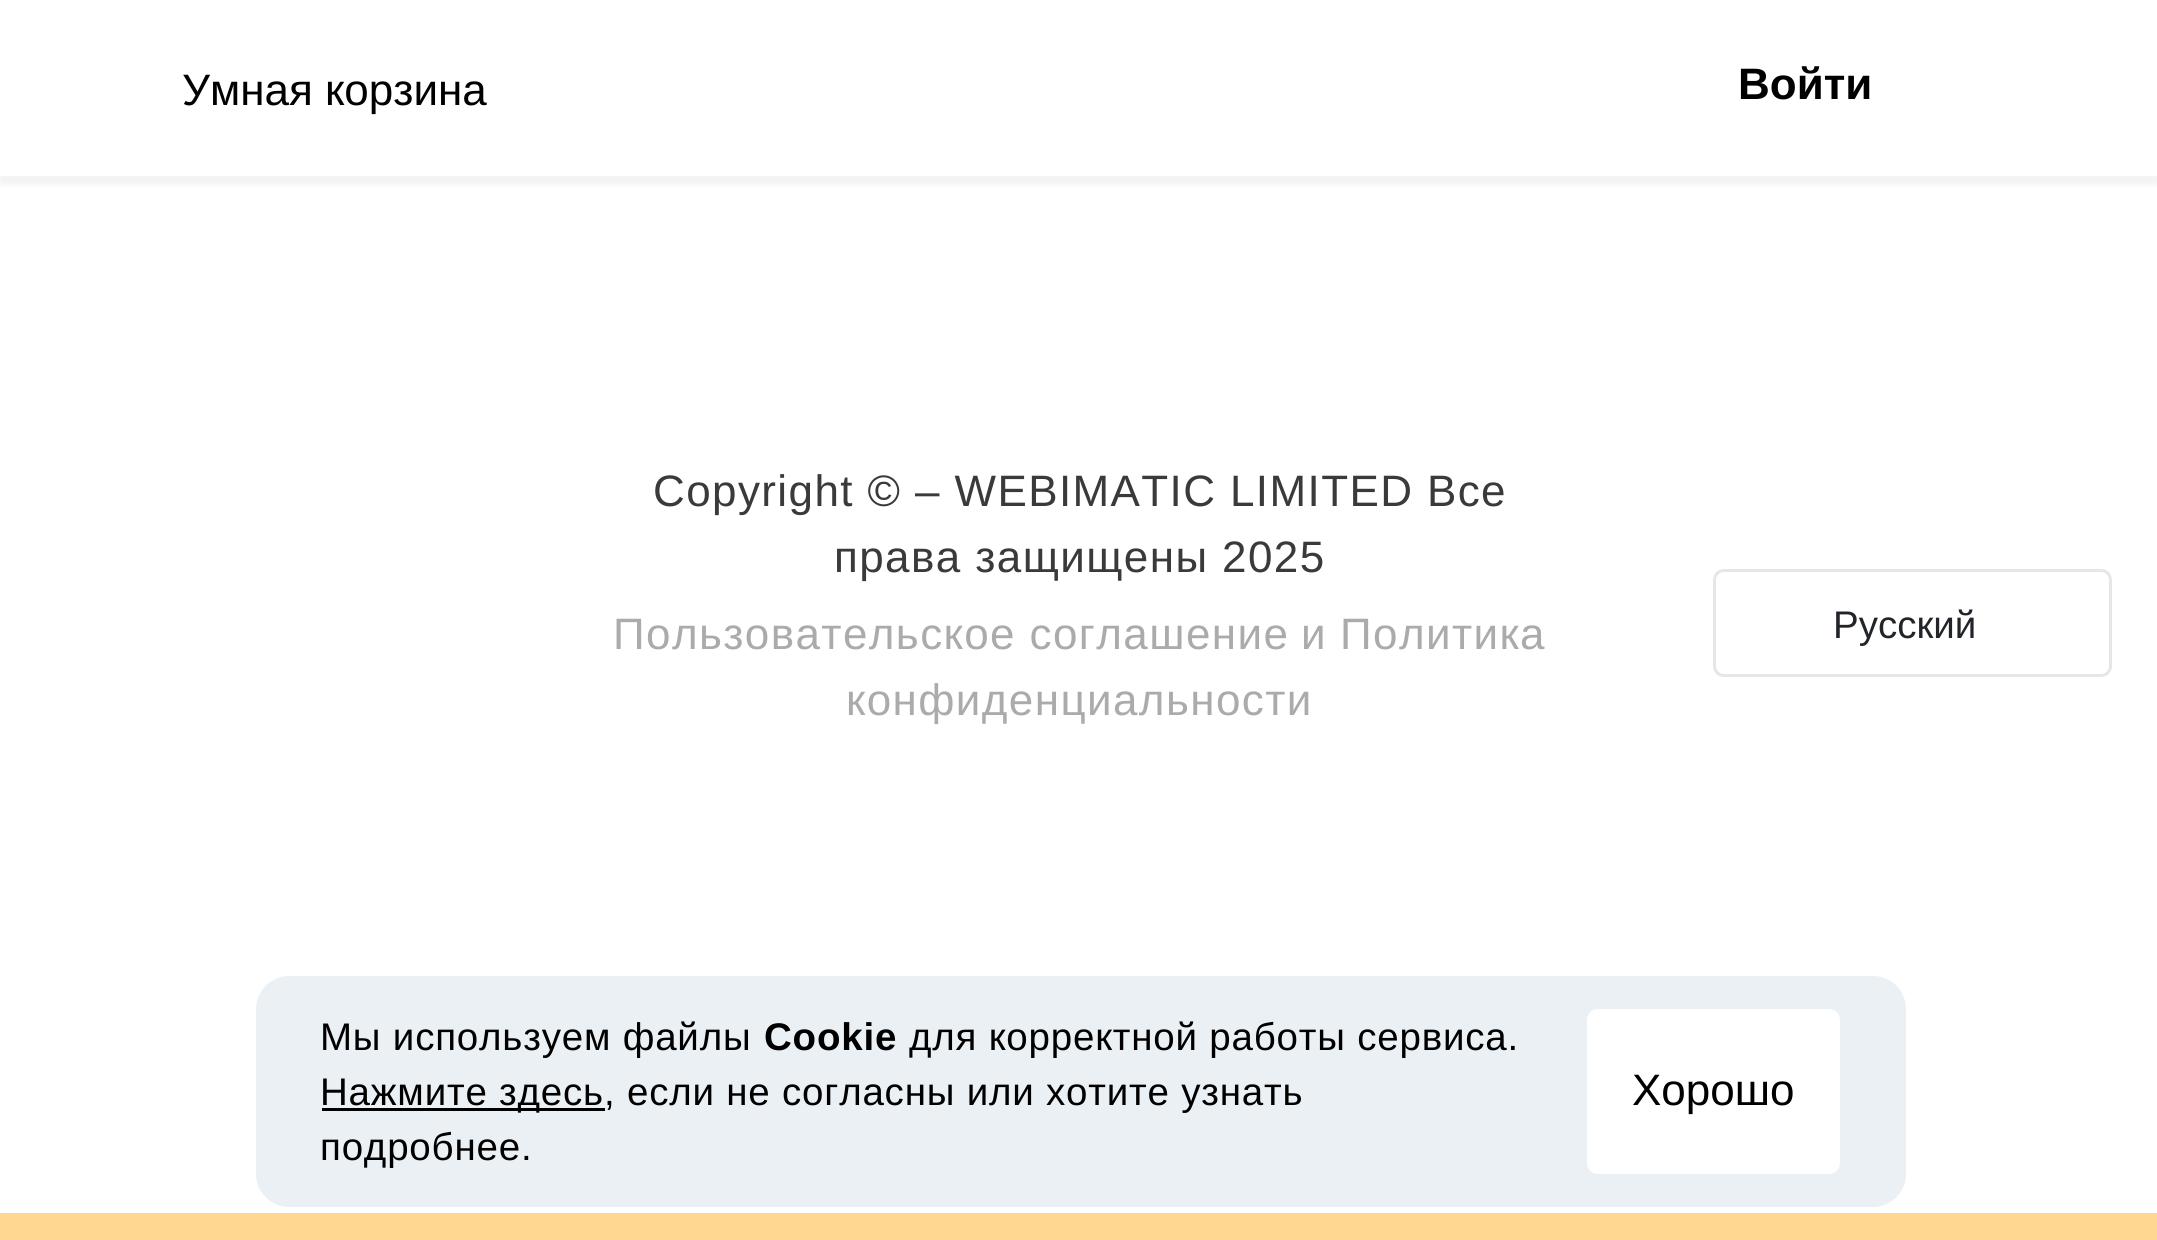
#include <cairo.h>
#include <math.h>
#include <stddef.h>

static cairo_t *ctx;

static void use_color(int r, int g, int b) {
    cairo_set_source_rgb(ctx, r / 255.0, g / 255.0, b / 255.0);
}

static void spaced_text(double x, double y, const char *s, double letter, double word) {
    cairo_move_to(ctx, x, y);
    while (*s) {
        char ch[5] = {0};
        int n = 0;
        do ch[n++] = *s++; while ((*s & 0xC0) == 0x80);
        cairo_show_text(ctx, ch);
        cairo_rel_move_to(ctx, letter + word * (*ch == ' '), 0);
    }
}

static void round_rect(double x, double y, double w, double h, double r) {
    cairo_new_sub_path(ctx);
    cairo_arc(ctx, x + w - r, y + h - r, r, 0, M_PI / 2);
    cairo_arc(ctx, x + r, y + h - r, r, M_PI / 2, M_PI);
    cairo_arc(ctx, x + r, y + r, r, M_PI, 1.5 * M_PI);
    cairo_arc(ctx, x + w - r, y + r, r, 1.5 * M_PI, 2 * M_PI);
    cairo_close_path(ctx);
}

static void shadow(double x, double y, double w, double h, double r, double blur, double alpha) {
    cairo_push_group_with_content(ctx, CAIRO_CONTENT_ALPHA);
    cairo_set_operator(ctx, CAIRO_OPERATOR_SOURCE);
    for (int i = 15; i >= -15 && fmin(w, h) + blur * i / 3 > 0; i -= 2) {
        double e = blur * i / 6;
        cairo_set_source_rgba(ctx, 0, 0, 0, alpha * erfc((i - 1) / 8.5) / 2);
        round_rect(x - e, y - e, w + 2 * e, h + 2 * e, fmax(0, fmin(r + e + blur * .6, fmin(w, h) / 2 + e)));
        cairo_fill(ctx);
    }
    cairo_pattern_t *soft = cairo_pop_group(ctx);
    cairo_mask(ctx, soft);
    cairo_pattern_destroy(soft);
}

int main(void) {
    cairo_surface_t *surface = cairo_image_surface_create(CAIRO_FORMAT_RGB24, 2157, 1240);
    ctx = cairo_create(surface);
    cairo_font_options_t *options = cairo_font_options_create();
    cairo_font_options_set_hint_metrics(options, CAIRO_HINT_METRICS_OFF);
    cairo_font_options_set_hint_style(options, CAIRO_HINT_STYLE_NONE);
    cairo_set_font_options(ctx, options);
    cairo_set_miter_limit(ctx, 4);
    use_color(255, 255, 255);
    cairo_paint(ctx);
    use_color(0, 0, 0);
    shadow(0, 6, 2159, 178, 0, 4, 0.06);
    use_color(255, 255, 255);
    cairo_rectangle(ctx, 0, 2, 2157, 174);
    cairo_fill(ctx);
    use_color(244, 244, 244);
    cairo_rectangle(ctx, 0, 176, 2157, 3);
    cairo_fill(ctx);
    cairo_select_font_face(ctx, "Liberation Sans", CAIRO_FONT_SLANT_NORMAL, CAIRO_FONT_WEIGHT_NORMAL);
    cairo_set_font_size(ctx, 44);
    use_color(0, 0, 0);
    cairo_move_to(ctx, 182, 105);
    cairo_show_text(ctx, "Умная корзина");
    cairo_select_font_face(ctx, "Liberation Sans", CAIRO_FONT_SLANT_NORMAL, CAIRO_FONT_WEIGHT_BOLD);
    cairo_move_to(ctx, 1738, 99);
    cairo_show_text(ctx, "Войти");
    use_color(255, 215, 144);
    cairo_rectangle(ctx, 0, 1213, 2157, 27);
    cairo_fill(ctx);
    cairo_select_font_face(ctx, "Liberation Sans", CAIRO_FONT_SLANT_NORMAL, CAIRO_FONT_WEIGHT_NORMAL);
    use_color(58, 58, 58);
    spaced_text(653, 506, "Copyright © – WEBIMATIC LIMITED Все", 1.4, 0);
    spaced_text(834, 572, "права защищены 2025", 1.4, 0);
    use_color(171, 171, 171);
    spaced_text(613, 649, "Пользовательское соглашение", 1.4, 0);
    spaced_text(1301, 649, "и", 1.4, 0);
    spaced_text(1340, 649, "Политика", 1.4, 0);
    spaced_text(846, 715, "конфиденциальности", 1.4, 0);
    round_rect(1714.5, 570.5, 396, 105, 9.5);
    use_color(230, 230, 230);
    cairo_set_line_width(ctx, 3);
    cairo_stroke(ctx);
    cairo_set_font_size(ctx, 38.5);
    use_color(33, 37, 41);
    cairo_move_to(ctx, 1833, 638);
    cairo_show_text(ctx, "Русский");
    use_color(235, 240, 245);
    round_rect(256, 976, 1650, 231, 33);
    cairo_fill(ctx);
    use_color(0, 0, 0);
    spaced_text(320, 1050, "Мы используем файлы", 0.8, 0);
    cairo_select_font_face(ctx, "Liberation Sans", CAIRO_FONT_SLANT_NORMAL, CAIRO_FONT_WEIGHT_BOLD);
    spaced_text(764, 1050, "Cookie", 0.8, 0);
    cairo_select_font_face(ctx, "Liberation Sans", CAIRO_FONT_SLANT_NORMAL, CAIRO_FONT_WEIGHT_NORMAL);
    spaced_text(909, 1050, "для корректной работы сервиса.", 0.8, 0);
    cairo_rectangle(ctx, 322, 1108, 283, 3);
    cairo_fill(ctx);
    spaced_text(320, 1105, "Нажмите здесь, если не согласны или хотите узнать", 0.8, 0);
    spaced_text(320, 1160, "подробнее.", 0.8, 0);
    use_color(255, 255, 255);
    round_rect(1587, 1009, 253, 165, 11);
    cairo_fill(ctx);
    cairo_set_font_size(ctx, 44);
    use_color(0, 0, 0);
    cairo_move_to(ctx, 1632, 1105);
    cairo_show_text(ctx, "Хорошо");
    cairo_surface_write_to_png(surface, "result.png");
    cairo_font_options_destroy(options);
    cairo_destroy(ctx);
    cairo_surface_destroy(surface);
    return 0;
}
